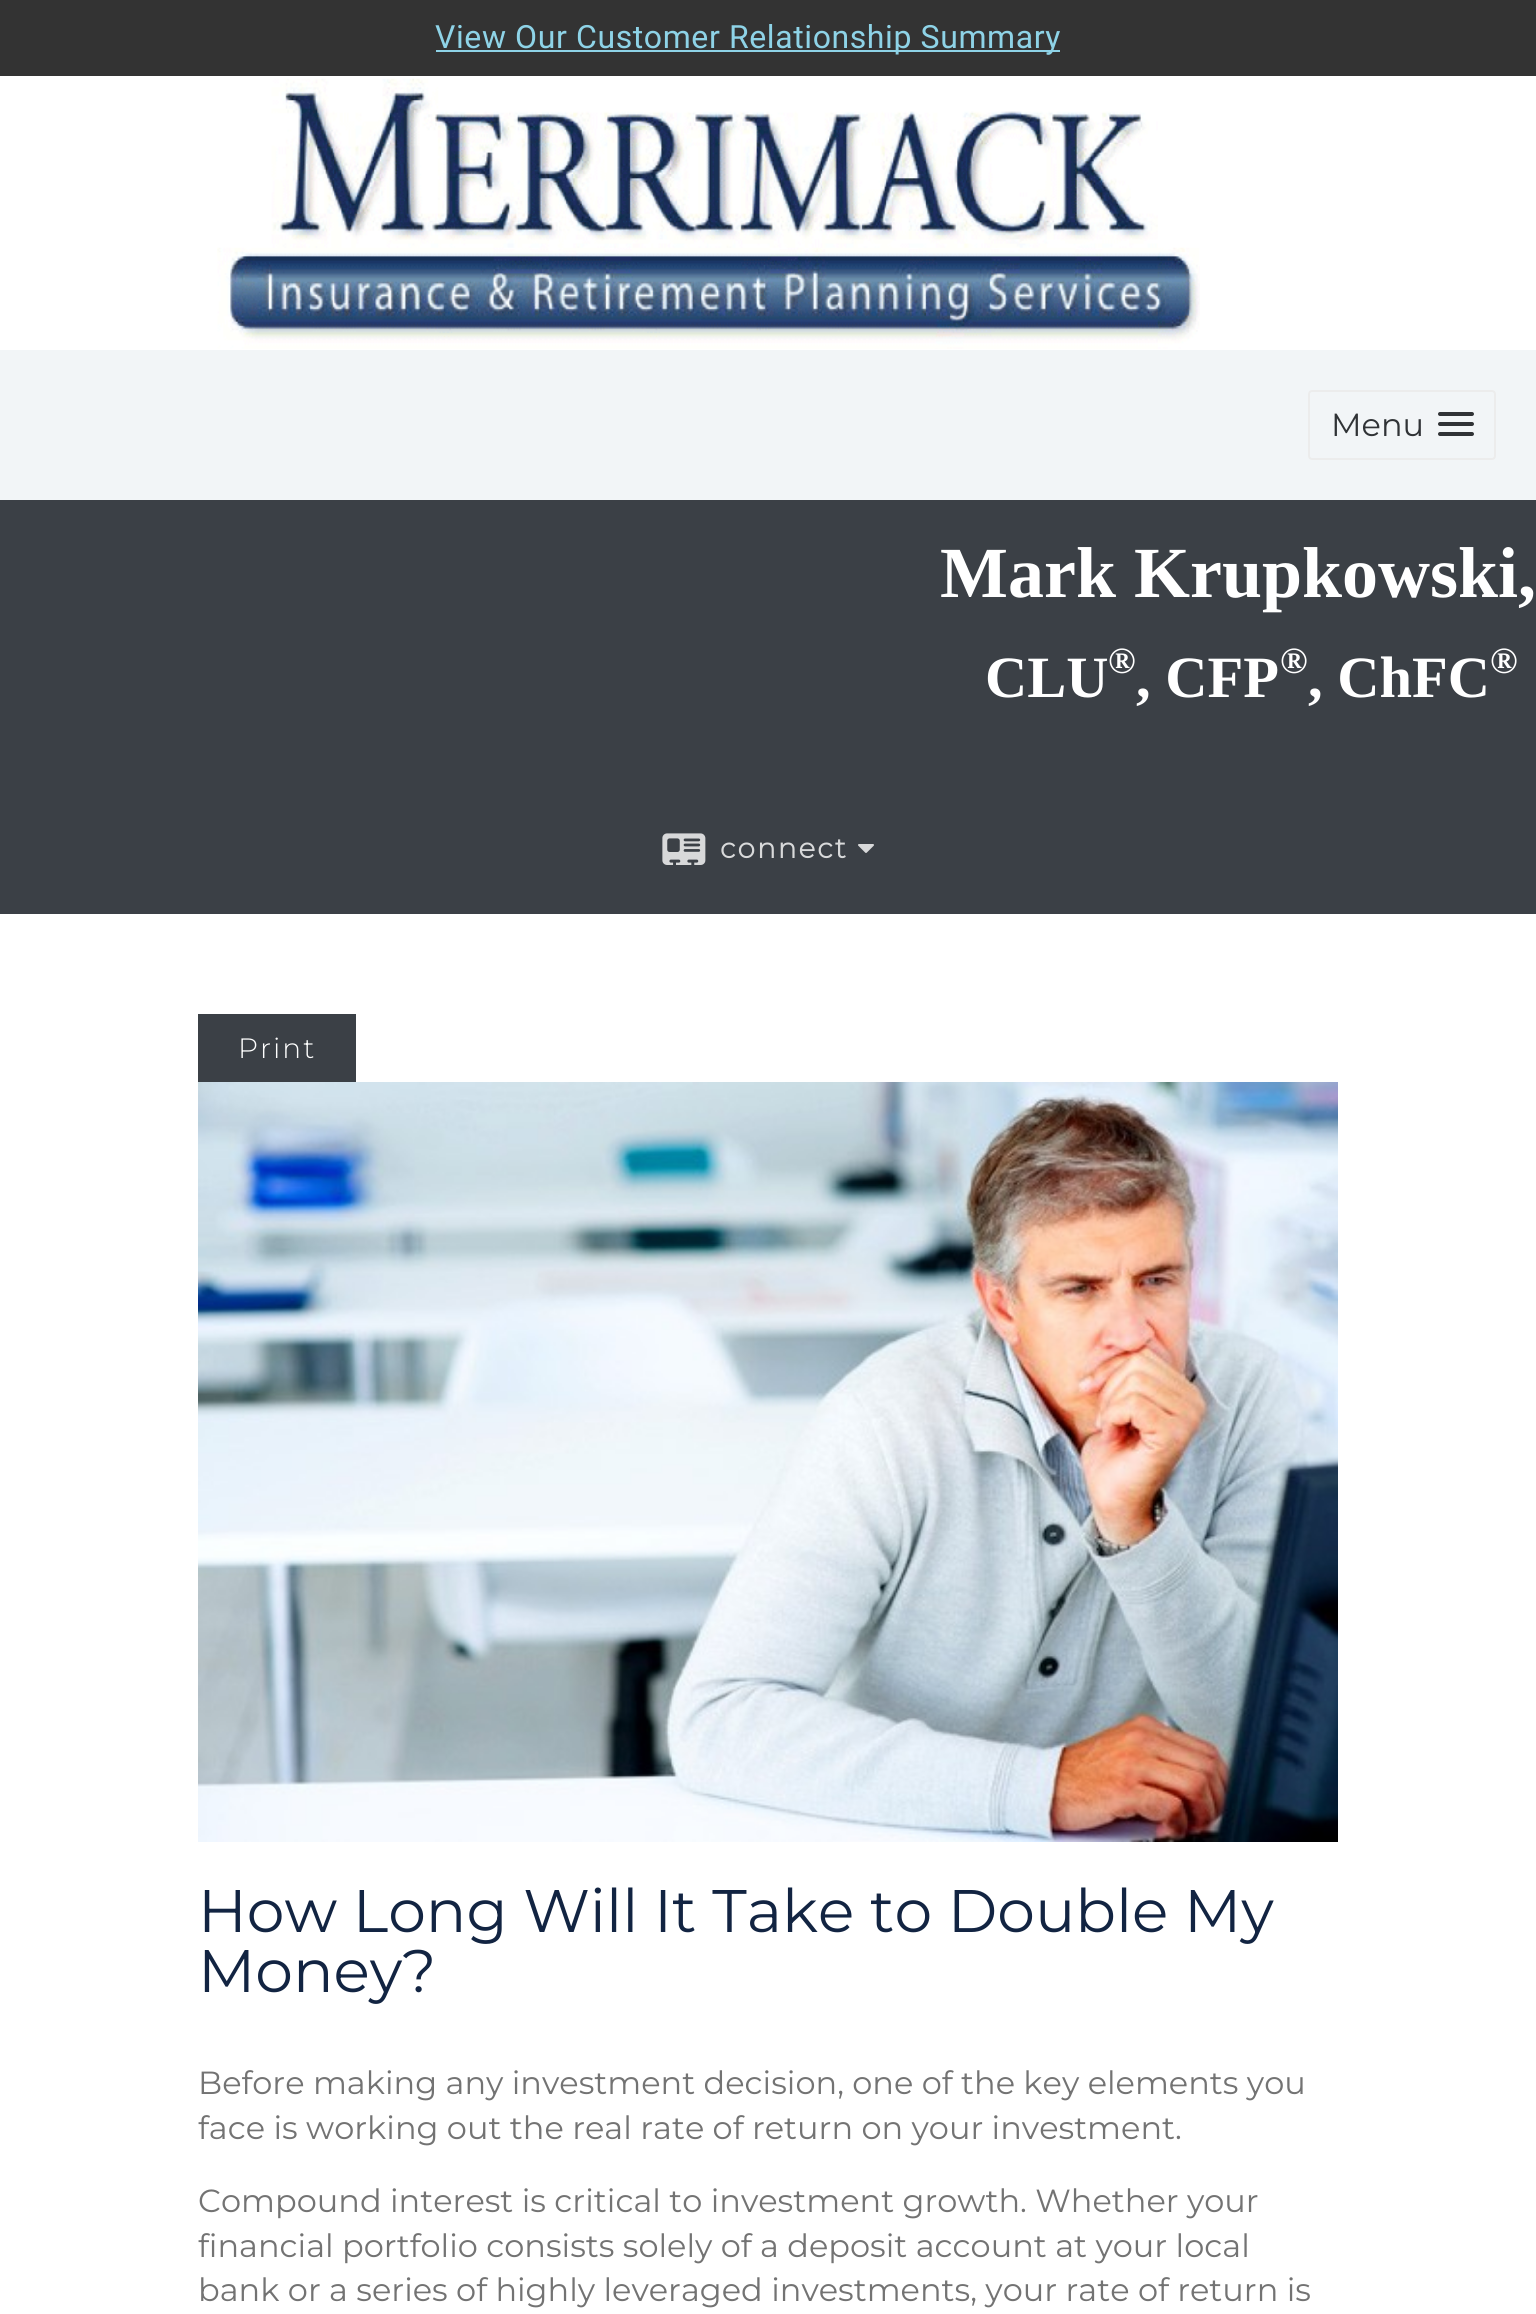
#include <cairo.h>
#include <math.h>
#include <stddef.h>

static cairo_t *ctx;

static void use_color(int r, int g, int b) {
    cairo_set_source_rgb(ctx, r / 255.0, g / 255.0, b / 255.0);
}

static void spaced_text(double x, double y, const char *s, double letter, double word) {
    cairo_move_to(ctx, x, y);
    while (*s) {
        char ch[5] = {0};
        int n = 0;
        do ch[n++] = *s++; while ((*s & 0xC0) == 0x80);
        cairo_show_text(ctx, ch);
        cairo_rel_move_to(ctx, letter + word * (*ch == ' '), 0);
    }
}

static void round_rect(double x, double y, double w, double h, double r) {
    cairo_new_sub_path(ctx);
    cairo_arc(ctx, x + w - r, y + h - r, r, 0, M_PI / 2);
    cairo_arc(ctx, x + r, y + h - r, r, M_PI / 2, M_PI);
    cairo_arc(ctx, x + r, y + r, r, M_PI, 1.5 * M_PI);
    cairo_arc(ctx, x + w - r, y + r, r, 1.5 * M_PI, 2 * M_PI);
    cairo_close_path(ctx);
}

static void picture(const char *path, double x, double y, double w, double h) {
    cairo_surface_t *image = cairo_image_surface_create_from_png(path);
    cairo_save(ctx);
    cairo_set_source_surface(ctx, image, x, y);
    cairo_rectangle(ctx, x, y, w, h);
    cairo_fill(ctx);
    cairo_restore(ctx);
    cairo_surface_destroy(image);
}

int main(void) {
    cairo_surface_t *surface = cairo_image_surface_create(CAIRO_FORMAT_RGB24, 1536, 2314);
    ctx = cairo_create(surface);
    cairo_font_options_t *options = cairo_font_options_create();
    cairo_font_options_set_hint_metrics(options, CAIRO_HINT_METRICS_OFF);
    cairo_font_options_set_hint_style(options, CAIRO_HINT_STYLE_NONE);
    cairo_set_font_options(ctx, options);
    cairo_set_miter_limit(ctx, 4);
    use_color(255, 255, 255);
    cairo_paint(ctx);
    use_color(51, 51, 51);
    cairo_rectangle(ctx, 0, 0, 1536, 76);
    cairo_fill(ctx);
    use_color(142, 211, 231);
    cairo_rectangle(ctx, 436, 50, 624, 2);
    cairo_fill(ctx);
    cairo_select_font_face(ctx, "Roboto", CAIRO_FONT_SLANT_NORMAL, CAIRO_FONT_WEIGHT_NORMAL);
    cairo_set_font_size(ctx, 32);
    spaced_text(435, 48, "View Our Customer Relationship Summary", 0.6, 0);
    picture("img1.png", 217, 78, 983, 271);
    use_color(242, 245, 247);
    cairo_rectangle(ctx, 0, 350, 1536, 150);
    cairo_fill(ctx);
    round_rect(1309, 391, 186, 68, 3);
    use_color(236, 236, 236);
    cairo_stroke(ctx);
    cairo_select_font_face(ctx, "Montserrat", CAIRO_FONT_SLANT_NORMAL, CAIRO_FONT_WEIGHT_NORMAL);
    use_color(48, 51, 54);
    cairo_move_to(ctx, 1331, 436);
    cairo_show_text(ctx, "Menu");
    round_rect(1438, 412, 36, 4, 2);
    cairo_fill(ctx);
    round_rect(1438, 422, 36, 4, 2);
    cairo_fill(ctx);
    round_rect(1438, 432, 36, 4, 2);
    cairo_fill(ctx);
    use_color(59, 64, 70);
    cairo_rectangle(ctx, 0, 500, 1536, 414);
    cairo_fill(ctx);
    cairo_select_font_face(ctx, "Liberation Serif", CAIRO_FONT_SLANT_NORMAL, CAIRO_FONT_WEIGHT_BOLD);
    cairo_set_font_size(ctx, 72);
    use_color(255, 255, 255);
    cairo_move_to(ctx, 940, 597);
    cairo_show_text(ctx, "Mark Krupkowski,");
    cairo_set_font_size(ctx, 58.5);
    cairo_move_to(ctx, 985, 697);
    cairo_show_text(ctx, "CLU");
    cairo_set_font_size(ctx, 37);
    cairo_move_to(ctx, 1108, 673);
    cairo_show_text(ctx, "®");
    cairo_set_font_size(ctx, 58.5);
    cairo_move_to(ctx, 1136, 697);
    cairo_show_text(ctx, ", CFP");
    cairo_set_font_size(ctx, 37);
    cairo_move_to(ctx, 1280, 673);
    cairo_show_text(ctx, "®");
    cairo_set_font_size(ctx, 58.5);
    cairo_move_to(ctx, 1308, 697);
    cairo_show_text(ctx, ", ChFC");
    cairo_set_font_size(ctx, 37);
    cairo_move_to(ctx, 1490, 673);
    cairo_show_text(ctx, "®");
    picture("img2.png", 662, 833, 44, 32);
    cairo_select_font_face(ctx, "Montserrat", CAIRO_FONT_SLANT_NORMAL, CAIRO_FONT_WEIGHT_BOLD);
    cairo_set_font_size(ctx, 28);
    use_color(216, 217, 218);
    spaced_text(720, 858, "connect", 2, 0);
    picture("img3.png", 858, 844, 16, 9);
    use_color(59, 64, 70);
    cairo_rectangle(ctx, 198, 1014, 158, 68);
    cairo_fill(ctx);
    cairo_select_font_face(ctx, "Montserrat Light", CAIRO_FONT_SLANT_NORMAL, CAIRO_FONT_WEIGHT_NORMAL);
    use_color(255, 255, 255);
    spaced_text(238, 1058, "Print", 2, 0);
    picture("img4.png", 198, 1082, 1140, 760);
    cairo_select_font_face(ctx, "Montserrat", CAIRO_FONT_SLANT_NORMAL, CAIRO_FONT_WEIGHT_NORMAL);
    cairo_set_font_size(ctx, 60);
    use_color(18, 36, 66);
    cairo_move_to(ctx, 198, 1932);
    cairo_show_text(ctx, "How Long Will It Take to Double My");
    cairo_move_to(ctx, 198, 1992);
    cairo_show_text(ctx, "Money?");
    cairo_set_font_size(ctx, 32);
    use_color(115, 115, 115);
    cairo_move_to(ctx, 198, 2094);
    cairo_show_text(ctx, "Before making any investment decision, one of the key elements you");
    cairo_move_to(ctx, 198, 2139);
    cairo_show_text(ctx, "face is working out the real rate of return on your investment.");
    cairo_move_to(ctx, 198, 2212);
    cairo_show_text(ctx, "Compound interest is critical to investment growth. Whether your");
    cairo_move_to(ctx, 198, 2257);
    cairo_show_text(ctx, "financial portfolio consists solely of a deposit account at your local");
    cairo_move_to(ctx, 198, 2301);
    cairo_show_text(ctx, "bank or a series of highly leveraged investments, your rate of return is");
    cairo_surface_write_to_png(surface, "result.png");
    cairo_font_options_destroy(options);
    cairo_destroy(ctx);
    cairo_surface_destroy(surface);
    return 0;
}
